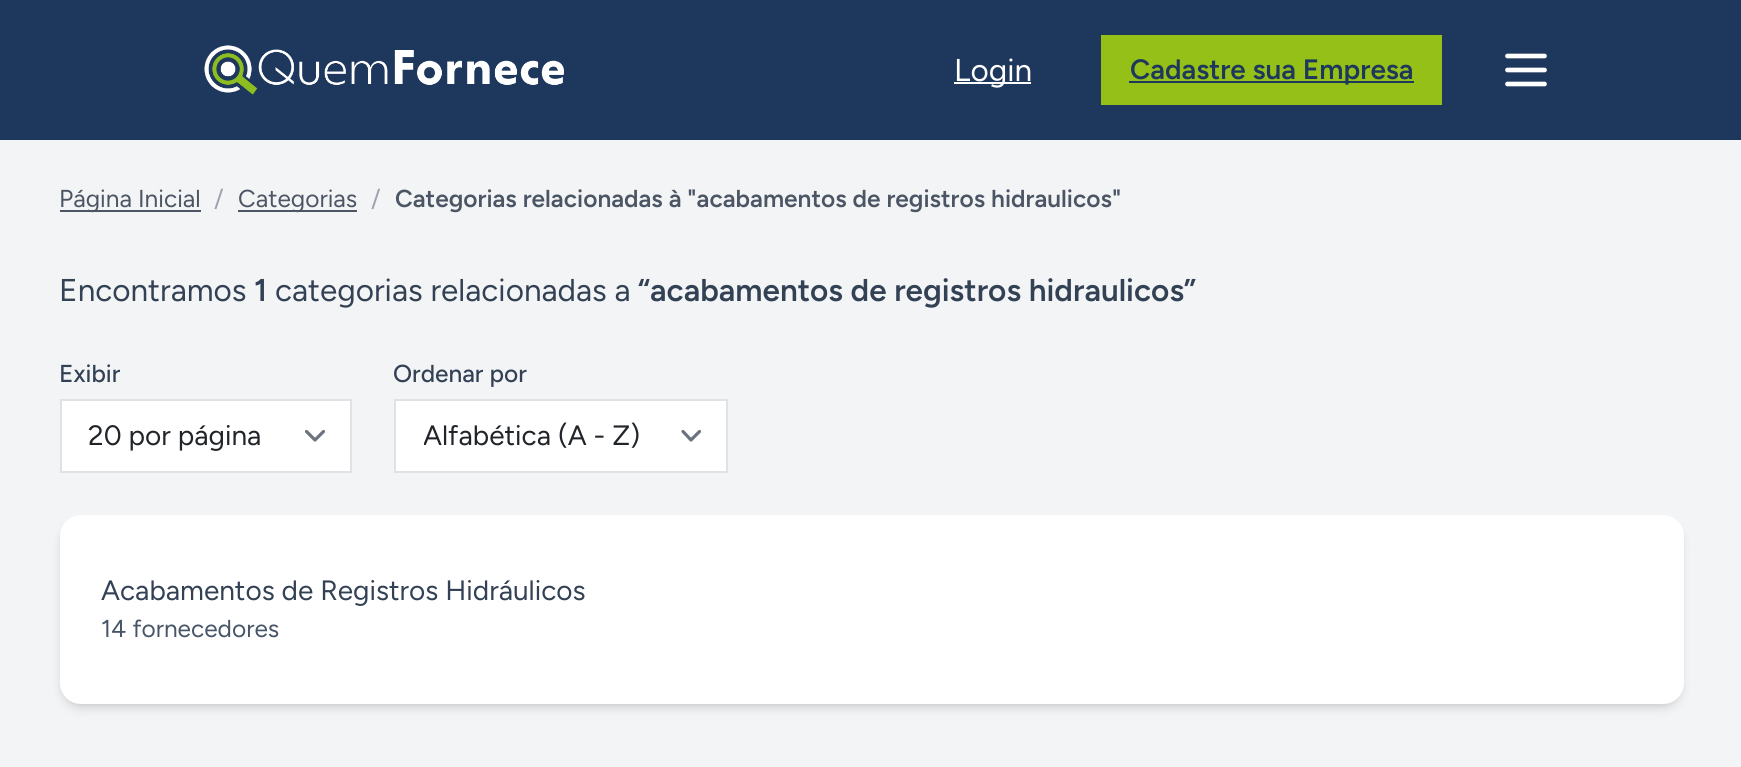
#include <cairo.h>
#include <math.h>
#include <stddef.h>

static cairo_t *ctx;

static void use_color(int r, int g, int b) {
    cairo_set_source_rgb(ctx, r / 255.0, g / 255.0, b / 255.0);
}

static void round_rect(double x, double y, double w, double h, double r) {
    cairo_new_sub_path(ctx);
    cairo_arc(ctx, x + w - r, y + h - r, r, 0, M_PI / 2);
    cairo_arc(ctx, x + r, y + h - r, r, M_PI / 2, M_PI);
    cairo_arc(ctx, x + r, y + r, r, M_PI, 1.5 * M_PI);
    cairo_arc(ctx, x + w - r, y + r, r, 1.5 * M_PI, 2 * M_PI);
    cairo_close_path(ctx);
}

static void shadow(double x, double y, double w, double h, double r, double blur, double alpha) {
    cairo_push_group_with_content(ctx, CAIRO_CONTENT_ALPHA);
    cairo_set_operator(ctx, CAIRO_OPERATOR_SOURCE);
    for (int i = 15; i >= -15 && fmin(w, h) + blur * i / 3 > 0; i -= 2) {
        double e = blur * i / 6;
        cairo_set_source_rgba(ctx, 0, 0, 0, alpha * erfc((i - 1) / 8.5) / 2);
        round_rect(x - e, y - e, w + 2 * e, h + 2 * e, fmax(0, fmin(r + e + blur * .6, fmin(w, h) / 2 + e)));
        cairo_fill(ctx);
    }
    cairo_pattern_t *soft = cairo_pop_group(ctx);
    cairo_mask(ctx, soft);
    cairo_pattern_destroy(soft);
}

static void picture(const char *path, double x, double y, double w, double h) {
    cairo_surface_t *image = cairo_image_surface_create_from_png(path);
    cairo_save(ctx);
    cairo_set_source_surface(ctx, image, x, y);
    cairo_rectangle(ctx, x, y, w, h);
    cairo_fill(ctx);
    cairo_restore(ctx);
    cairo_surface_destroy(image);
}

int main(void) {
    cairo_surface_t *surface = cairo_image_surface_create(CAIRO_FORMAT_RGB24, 1741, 767);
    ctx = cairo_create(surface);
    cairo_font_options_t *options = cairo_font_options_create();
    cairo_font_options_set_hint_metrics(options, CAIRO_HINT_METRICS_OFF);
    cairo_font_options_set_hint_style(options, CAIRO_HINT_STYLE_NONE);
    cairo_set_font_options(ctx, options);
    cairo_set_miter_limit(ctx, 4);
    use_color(243, 244, 246);
    cairo_paint(ctx);
    use_color(30, 55, 92);
    cairo_rectangle(ctx, 0, 0, 1741, 140);
    cairo_fill(ctx);
    picture("img1.png", 204, 45, 360, 50);
    use_color(255, 255, 255);
    cairo_rectangle(ctx, 954, 82, 77, 2);
    cairo_fill(ctx);
    cairo_select_font_face(ctx, "Figtree Light", CAIRO_FONT_SLANT_NORMAL, CAIRO_FONT_WEIGHT_NORMAL);
    cairo_set_font_size(ctx, 31.5);
    cairo_move_to(ctx, 954, 81);
    cairo_show_text(ctx, "Login");
    use_color(149, 192, 24);
    cairo_rectangle(ctx, 1101, 35, 341, 70);
    cairo_fill(ctx);
    use_color(30, 55, 92);
    cairo_rectangle(ctx, 1129, 81, 285, 2);
    cairo_fill(ctx);
    cairo_select_font_face(ctx, "Figtree SemiBold", CAIRO_FONT_SLANT_NORMAL, CAIRO_FONT_WEIGHT_NORMAL);
    cairo_set_font_size(ctx, 28);
    cairo_move_to(ctx, 1130, 79);
    cairo_show_text(ctx, "Cadastre sua Empresa");
    cairo_new_path(ctx);
    cairo_move_to(ctx, 1507.5, 70);
    cairo_line_to(ctx, 1544.5, 70);
    cairo_move_to(ctx, 1507.5, 56);
    cairo_line_to(ctx, 1544.5, 56);
    cairo_move_to(ctx, 1507.5, 84);
    cairo_line_to(ctx, 1544.5, 84);
    use_color(255, 255, 255);
    cairo_set_line_width(ctx, 4.7);
    cairo_set_line_cap(ctx, CAIRO_LINE_CAP_ROUND);
    cairo_set_line_join(ctx, CAIRO_LINE_JOIN_ROUND);
    cairo_stroke(ctx);
    use_color(75, 85, 99);
    cairo_rectangle(ctx, 60, 210, 141, 2);
    cairo_fill(ctx);
    cairo_select_font_face(ctx, "Figtree Light", CAIRO_FONT_SLANT_NORMAL, CAIRO_FONT_WEIGHT_NORMAL);
    cairo_set_font_size(ctx, 24.5);
    cairo_move_to(ctx, 59, 207);
    cairo_show_text(ctx, "Página Inicial");
    use_color(156, 163, 175);
    cairo_move_to(ctx, 214, 207);
    cairo_show_text(ctx, "/");
    use_color(75, 85, 99);
    cairo_rectangle(ctx, 238, 210, 119, 2);
    cairo_fill(ctx);
    cairo_move_to(ctx, 238, 207);
    cairo_show_text(ctx, "Categorias");
    use_color(156, 163, 175);
    cairo_move_to(ctx, 371, 207);
    cairo_show_text(ctx, "/");
    cairo_select_font_face(ctx, "Figtree SemiBold", CAIRO_FONT_SLANT_NORMAL, CAIRO_FONT_WEIGHT_NORMAL);
    use_color(75, 85, 99);
    cairo_move_to(ctx, 395, 207);
    cairo_show_text(ctx, "Categorias relacionadas à \"acabamentos de registros hidraulicos\"");
    cairo_select_font_face(ctx, "Figtree Light", CAIRO_FONT_SLANT_NORMAL, CAIRO_FONT_WEIGHT_NORMAL);
    cairo_set_font_size(ctx, 31.5);
    use_color(51, 65, 85);
    cairo_move_to(ctx, 59, 301);
    cairo_show_text(ctx, "Encontramos");
    cairo_select_font_face(ctx, "Figtree SemiBold", CAIRO_FONT_SLANT_NORMAL, CAIRO_FONT_WEIGHT_NORMAL);
    cairo_move_to(ctx, 254, 301);
    cairo_show_text(ctx, "1");
    cairo_select_font_face(ctx, "Figtree Light", CAIRO_FONT_SLANT_NORMAL, CAIRO_FONT_WEIGHT_NORMAL);
    cairo_move_to(ctx, 275, 301);
    cairo_show_text(ctx, "categorias relacionadas a");
    cairo_select_font_face(ctx, "Figtree SemiBold", CAIRO_FONT_SLANT_NORMAL, CAIRO_FONT_WEIGHT_NORMAL);
    cairo_move_to(ctx, 638, 301);
    cairo_show_text(ctx, "“acabamentos de registros hidraulicos”");
    cairo_select_font_face(ctx, "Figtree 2 Light", CAIRO_FONT_SLANT_NORMAL, CAIRO_FONT_WEIGHT_NORMAL);
    cairo_set_font_size(ctx, 24.5);
    cairo_move_to(ctx, 59, 382);
    cairo_show_text(ctx, "Exibir");
    use_color(255, 255, 255);
    cairo_rectangle(ctx, 62, 401, 288, 70);
    cairo_fill(ctx);
    cairo_new_path(ctx);
    cairo_move_to(ctx, 306.5, 431.5);
    cairo_line_to(ctx, 315, 440);
    cairo_line_to(ctx, 323.5, 431.5);
    use_color(107, 114, 128);
    cairo_set_line_width(ctx, 3.2);
    cairo_stroke(ctx);
    cairo_rectangle(ctx, 61, 400, 290, 72);
    use_color(222, 226, 230);
    cairo_set_line_width(ctx, 2);
    cairo_set_line_cap(ctx, CAIRO_LINE_CAP_BUTT);
    cairo_set_line_join(ctx, CAIRO_LINE_JOIN_MITER);
    cairo_stroke(ctx);
    cairo_select_font_face(ctx, "Figtree Light", CAIRO_FONT_SLANT_NORMAL, CAIRO_FONT_WEIGHT_NORMAL);
    cairo_set_font_size(ctx, 28);
    use_color(33, 37, 41);
    cairo_move_to(ctx, 88, 445);
    cairo_show_text(ctx, "20 por página");
    cairo_select_font_face(ctx, "Figtree 2 Light", CAIRO_FONT_SLANT_NORMAL, CAIRO_FONT_WEIGHT_NORMAL);
    cairo_set_font_size(ctx, 24.5);
    use_color(51, 65, 85);
    cairo_move_to(ctx, 393, 382);
    cairo_show_text(ctx, "Ordenar por");
    use_color(255, 255, 255);
    cairo_rectangle(ctx, 396, 401, 330, 70);
    cairo_fill(ctx);
    cairo_new_path(ctx);
    cairo_move_to(ctx, 683, 431.5);
    cairo_line_to(ctx, 691, 440);
    cairo_line_to(ctx, 699.5, 431.5);
    use_color(107, 114, 128);
    cairo_set_line_width(ctx, 3.2);
    cairo_set_line_cap(ctx, CAIRO_LINE_CAP_ROUND);
    cairo_set_line_join(ctx, CAIRO_LINE_JOIN_ROUND);
    cairo_stroke(ctx);
    cairo_rectangle(ctx, 395, 400, 332, 72);
    use_color(222, 226, 230);
    cairo_set_line_width(ctx, 2);
    cairo_set_line_cap(ctx, CAIRO_LINE_CAP_BUTT);
    cairo_set_line_join(ctx, CAIRO_LINE_JOIN_MITER);
    cairo_stroke(ctx);
    cairo_save(ctx);
    cairo_rectangle(ctx, 424, 415, 218, 42);
    cairo_clip(ctx);
    cairo_select_font_face(ctx, "Figtree Light", CAIRO_FONT_SLANT_NORMAL, CAIRO_FONT_WEIGHT_NORMAL);
    cairo_set_font_size(ctx, 28);
    use_color(33, 37, 41);
    cairo_move_to(ctx, 423, 445);
    cairo_show_text(ctx, "Alfabética (A - Z)");
    cairo_restore(ctx);
    use_color(0, 0, 0);
    shadow(63, 522, 1617, 182, 18, 3.5, 0.1);
    shadow(61, 523, 1621, 186, 19, 5, 0.1);
    use_color(255, 255, 255);
    round_rect(60, 515, 1624, 189, 21);
    cairo_fill(ctx);
    cairo_select_font_face(ctx, "Figtree Light", CAIRO_FONT_SLANT_NORMAL, CAIRO_FONT_WEIGHT_NORMAL);
    cairo_set_font_size(ctx, 28);
    use_color(51, 65, 85);
    cairo_move_to(ctx, 101, 600);
    cairo_show_text(ctx, "Acabamentos de Registros Hidráulicos");
    cairo_set_font_size(ctx, 24.5);
    use_color(71, 85, 105);
    cairo_move_to(ctx, 101, 637);
    cairo_show_text(ctx, "14 fornecedores");
    cairo_surface_write_to_png(surface, "result.png");
    cairo_font_options_destroy(options);
    cairo_destroy(ctx);
    cairo_surface_destroy(surface);
    return 0;
}
